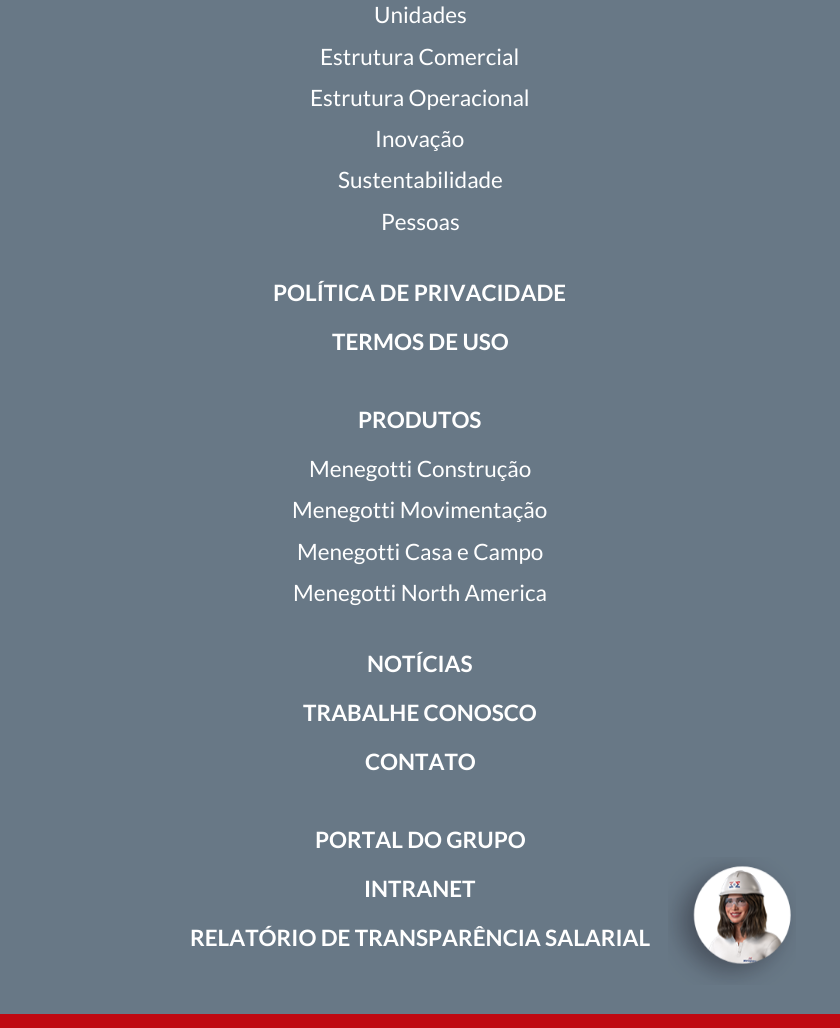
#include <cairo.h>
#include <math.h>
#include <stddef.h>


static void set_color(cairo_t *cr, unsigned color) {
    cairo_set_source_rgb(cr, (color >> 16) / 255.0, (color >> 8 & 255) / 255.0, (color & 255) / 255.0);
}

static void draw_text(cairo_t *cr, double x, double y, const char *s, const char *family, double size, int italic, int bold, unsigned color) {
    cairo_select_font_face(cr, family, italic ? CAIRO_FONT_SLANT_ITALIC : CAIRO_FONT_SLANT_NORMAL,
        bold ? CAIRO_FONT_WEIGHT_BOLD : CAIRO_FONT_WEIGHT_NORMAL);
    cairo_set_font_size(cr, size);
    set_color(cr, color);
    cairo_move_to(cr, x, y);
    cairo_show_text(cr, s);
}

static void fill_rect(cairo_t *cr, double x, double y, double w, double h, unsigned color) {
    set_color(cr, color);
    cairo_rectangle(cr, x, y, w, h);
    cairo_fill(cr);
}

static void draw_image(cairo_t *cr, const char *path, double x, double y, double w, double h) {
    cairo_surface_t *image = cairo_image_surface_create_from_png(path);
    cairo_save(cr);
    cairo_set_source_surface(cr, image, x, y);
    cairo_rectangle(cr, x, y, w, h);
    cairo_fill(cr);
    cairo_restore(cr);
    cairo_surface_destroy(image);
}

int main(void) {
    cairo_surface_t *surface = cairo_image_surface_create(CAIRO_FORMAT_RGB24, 840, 1028);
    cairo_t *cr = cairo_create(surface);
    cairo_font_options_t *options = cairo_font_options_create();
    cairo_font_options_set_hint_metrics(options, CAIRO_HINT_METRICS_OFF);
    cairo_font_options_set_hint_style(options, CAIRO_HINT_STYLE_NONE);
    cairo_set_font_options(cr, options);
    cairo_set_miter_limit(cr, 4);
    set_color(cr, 0x687886);
    cairo_paint(cr);
    draw_text(cr, 374, 23, "Unidades", "Lato", 22.5, 0, 0, 0xFFFFFF);
    draw_text(cr, 320, 65, "Estrutura Comercial", "Lato", 22.5, 0, 0, 0xFFFFFF);
    draw_text(cr, 310, 106, "Estrutura Operacional", "Lato", 22.5, 0, 0, 0xFFFFFF);
    draw_text(cr, 375, 147, "Inovação", "Lato", 22.5, 0, 0, 0xFFFFFF);
    draw_text(cr, 338, 188, "Sustentabilidade", "Lato", 22.5, 0, 0, 0xFFFFFF);
    draw_text(cr, 381, 230, "Pessoas", "Lato", 22.5, 0, 0, 0xFFFFFF);
    draw_text(cr, 273, 301, "POLÍTICA DE PRIVACIDADE", "Lato", 22.5, 0, 1, 0xFFFFFF);
    draw_text(cr, 332, 350, "TERMOS DE USO", "Lato", 22.5, 0, 1, 0xFFFFFF);
    draw_text(cr, 358, 428, "PRODUTOS", "Lato", 22.5, 0, 1, 0xFFFFFF);
    draw_text(cr, 309, 477, "Menegotti Construção", "Lato", 22.5, 0, 0, 0xFFFFFF);
    draw_text(cr, 292, 518, "Menegotti Movimentação", "Lato", 22.5, 0, 0, 0xFFFFFF);
    draw_text(cr, 297, 560, "Menegotti Casa e Campo", "Lato", 22.5, 0, 0, 0xFFFFFF);
    draw_text(cr, 293, 601, "Menegotti North America", "Lato", 22.5, 0, 0, 0xFFFFFF);
    draw_text(cr, 367, 672, "NOTÍCIAS", "Lato", 22.5, 0, 1, 0xFFFFFF);
    draw_text(cr, 303, 721, "TRABALHE CONOSCO", "Lato", 22.5, 0, 1, 0xFFFFFF);
    draw_text(cr, 365, 770, "CONTATO", "Lato", 22.5, 0, 1, 0xFFFFFF);
    draw_text(cr, 315, 848, "PORTAL DO GRUPO", "Lato", 22.5, 0, 1, 0xFFFFFF);
    draw_text(cr, 364, 897, "INTRANET", "Lato", 22.5, 0, 1, 0xFFFFFF);
    draw_text(cr, 190, 946, "RELATÓRIO DE TRANSPARÊNCIA SALARIAL", "Lato", 22.5, 0, 1, 0xFFFFFF);
    fill_rect(cr, 0, 1014, 840, 14, 0xBF0811);
    draw_image(cr, "assets/img1.png", 668, 857, 128, 128);
    cairo_surface_write_to_png(surface, "output.png");
    cairo_font_options_destroy(options);
    cairo_destroy(cr);
    cairo_surface_destroy(surface);
    return 0;
}
